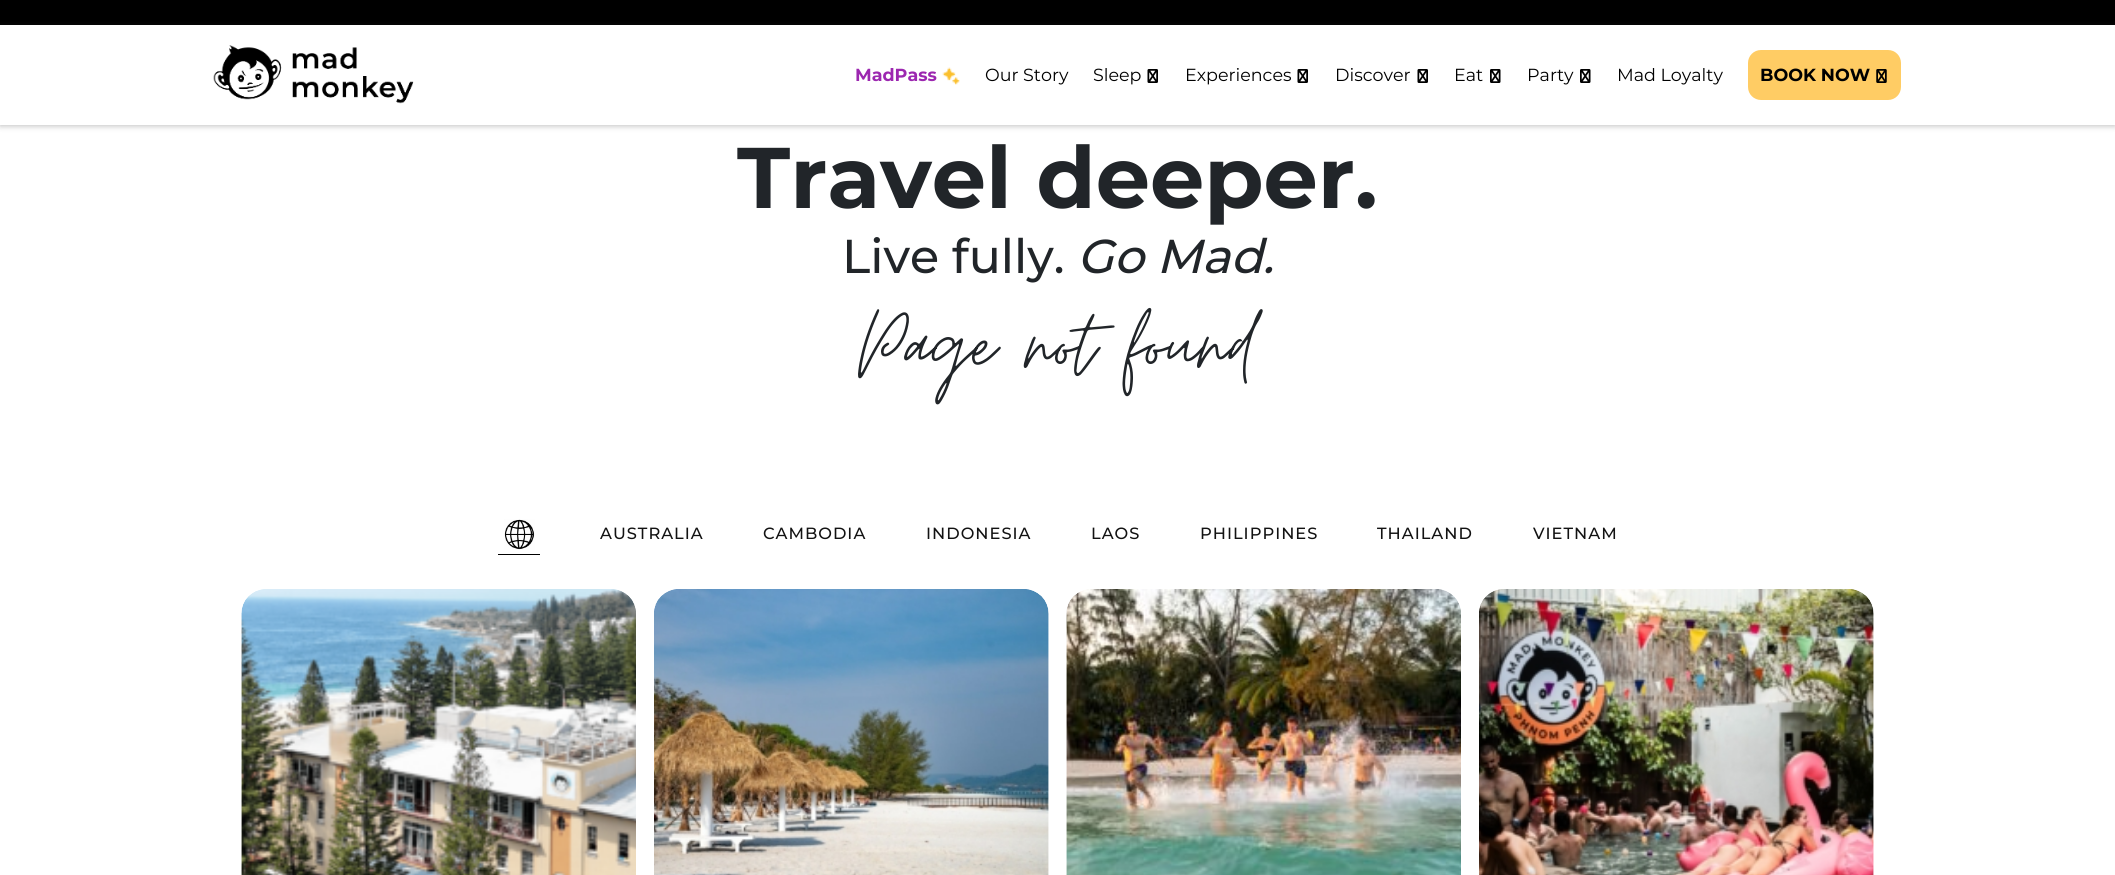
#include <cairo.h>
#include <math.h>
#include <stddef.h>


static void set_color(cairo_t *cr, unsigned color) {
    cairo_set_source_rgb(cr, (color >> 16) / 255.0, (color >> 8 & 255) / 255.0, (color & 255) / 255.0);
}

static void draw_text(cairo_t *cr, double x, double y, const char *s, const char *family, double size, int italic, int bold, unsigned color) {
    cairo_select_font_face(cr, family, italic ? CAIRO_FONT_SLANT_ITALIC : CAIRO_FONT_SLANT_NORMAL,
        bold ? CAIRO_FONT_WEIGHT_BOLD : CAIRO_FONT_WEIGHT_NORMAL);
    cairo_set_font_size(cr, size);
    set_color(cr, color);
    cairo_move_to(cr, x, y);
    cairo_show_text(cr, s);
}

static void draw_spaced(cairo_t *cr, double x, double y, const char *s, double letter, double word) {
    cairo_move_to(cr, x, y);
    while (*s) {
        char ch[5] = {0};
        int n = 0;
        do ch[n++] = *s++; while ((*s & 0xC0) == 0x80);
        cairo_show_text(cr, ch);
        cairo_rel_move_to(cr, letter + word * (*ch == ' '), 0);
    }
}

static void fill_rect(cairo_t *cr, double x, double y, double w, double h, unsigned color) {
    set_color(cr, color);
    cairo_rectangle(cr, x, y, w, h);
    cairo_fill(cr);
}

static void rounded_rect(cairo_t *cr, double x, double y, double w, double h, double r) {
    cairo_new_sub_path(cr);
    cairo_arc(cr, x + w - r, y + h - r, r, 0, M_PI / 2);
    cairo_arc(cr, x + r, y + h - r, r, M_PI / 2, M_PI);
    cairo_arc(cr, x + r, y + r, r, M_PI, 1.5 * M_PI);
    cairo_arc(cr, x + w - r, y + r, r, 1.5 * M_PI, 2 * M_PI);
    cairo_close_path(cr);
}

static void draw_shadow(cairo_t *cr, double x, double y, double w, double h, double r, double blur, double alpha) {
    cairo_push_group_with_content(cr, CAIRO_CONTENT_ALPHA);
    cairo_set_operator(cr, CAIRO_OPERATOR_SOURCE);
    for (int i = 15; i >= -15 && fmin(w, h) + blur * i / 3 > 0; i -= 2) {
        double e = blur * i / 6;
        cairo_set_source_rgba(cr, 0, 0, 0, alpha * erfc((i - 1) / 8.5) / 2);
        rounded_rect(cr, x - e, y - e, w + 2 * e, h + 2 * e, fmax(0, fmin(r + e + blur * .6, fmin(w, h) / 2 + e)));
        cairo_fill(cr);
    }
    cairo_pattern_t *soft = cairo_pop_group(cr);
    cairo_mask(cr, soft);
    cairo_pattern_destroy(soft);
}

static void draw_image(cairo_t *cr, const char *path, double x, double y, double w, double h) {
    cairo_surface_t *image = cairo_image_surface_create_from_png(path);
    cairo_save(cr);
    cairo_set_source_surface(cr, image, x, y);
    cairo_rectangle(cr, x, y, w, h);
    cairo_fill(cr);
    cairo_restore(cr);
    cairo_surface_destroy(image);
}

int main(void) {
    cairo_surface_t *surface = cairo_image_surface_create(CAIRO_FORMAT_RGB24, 2115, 875);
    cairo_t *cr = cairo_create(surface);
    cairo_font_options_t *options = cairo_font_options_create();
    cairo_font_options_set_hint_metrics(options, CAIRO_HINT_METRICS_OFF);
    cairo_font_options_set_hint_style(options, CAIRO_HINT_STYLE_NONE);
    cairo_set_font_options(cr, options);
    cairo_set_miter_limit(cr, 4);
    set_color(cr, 0xFFFFFF);
    cairo_paint(cr);
    fill_rect(cr, 0, 0, 2115, 25, 0x000000);
    cairo_save(cr);
    cairo_set_fill_rule(cr, CAIRO_FILL_RULE_EVEN_ODD);
    cairo_new_path(cr);
    cairo_move_to(cr, 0, 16);
    cairo_line_to(cr, 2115, 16);
    cairo_line_to(cr, 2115, 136);
    cairo_line_to(cr, 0, 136);
    cairo_close_path(cr);
    cairo_move_to(cr, 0, 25);
    cairo_line_to(cr, 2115, 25);
    cairo_line_to(cr, 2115, 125);
    cairo_line_to(cr, 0, 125);
    cairo_close_path(cr);
    cairo_clip(cr);
    set_color(cr, 0x2D2D2D);
    draw_shadow(cr, 0, 26, 2115, 100, 0, 3, 0.3);
    cairo_restore(cr);
    draw_image(cr, "assets/img1.png", 213, 45, 201, 59);
    draw_text(cr, 855, 81, "MadPass", "Montserrat", 17.5, 0, 1, 0x9C27B0);
    draw_image(cr, "assets/img2.png", 942, 67, 18, 18);
    draw_text(cr, 985, 81, "Our Story", "Montserrat", 17.5, 0, 0, 0x000000);
    draw_text(cr, 1093, 81, "Sleep", "Montserrat", 17.5, 0, 0, 0x000000);
    draw_image(cr, "assets/img3.png", 1147, 69, 11, 14);
    draw_text(cr, 1185, 81, "Experiences", "Montserrat", 17.5, 0, 0, 0x000000);
    draw_image(cr, "assets/img3.png", 1297, 69, 11, 14);
    draw_text(cr, 1335, 81, "Discover", "Montserrat", 17.5, 0, 0, 0x000000);
    draw_image(cr, "assets/img3.png", 1417, 69, 11, 14);
    draw_text(cr, 1454, 81, "Eat", "Montserrat", 17.5, 0, 0, 0x000000);
    draw_image(cr, "assets/img4.png", 1490, 69, 11, 14);
    draw_text(cr, 1527, 81, "Party", "Montserrat", 17.5, 0, 0, 0x000000);
    draw_image(cr, "assets/img4.png", 1580, 69, 11, 14);
    draw_text(cr, 1617, 81, "Mad Loyalty", "Montserrat", 17.5, 0, 0, 0x000000);
    set_color(cr, 0xFFCC64);
    rounded_rect(cr, 1748, 50, 153, 50, 13);
    cairo_fill(cr);
    draw_text(cr, 1760, 81, "BOOK NOW", "Montserrat", 17.5, 0, 1, 0x000000);
    draw_image(cr, "assets/img5.png", 1876, 69, 11, 14);
    draw_text(cr, 737, 208, "Travel deeper.", "Montserrat", 86, 0, 1, 0x212529);
    draw_text(cr, 842, 273, "Live fully.", "Montserrat Medium", 47.5, 0, 0, 0x212529);
    draw_text(cr, 1077, 273, "Go Mad.", "Montserrat Medium", 47.5, 1, 0, 0x212529);
    draw_text(cr, 858, 369, "Page not found", "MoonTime", 100, 0, 0, 0x212529);
    draw_image(cr, "assets/img6.png", 504, 519, 31, 31);
    fill_rect(cr, 498, 554, 42, 1, 0x000000);
    cairo_select_font_face(cr, "Montserrat Medium", CAIRO_FONT_SLANT_NORMAL, CAIRO_FONT_WEIGHT_NORMAL);
    cairo_set_font_size(cr, 16.25);
    set_color(cr, 0x121212);
    draw_spaced(cr, 600, 539, "AUSTRALIA", 1, 0);
    draw_spaced(cr, 763, 539, "CAMBODIA", 1, 0);
    draw_spaced(cr, 926, 539, "INDONESIA", 1, 0);
    draw_spaced(cr, 1091, 539, "LAOS", 1, 0);
    draw_spaced(cr, 1200, 539, "PHILIPPINES", 1, 0);
    draw_spaced(cr, 1377, 539, "THAILAND", 1, 0);
    draw_spaced(cr, 1533, 539, "VIETNAM", 1, 0);
    draw_image(cr, "assets/img7.png", 241, 589, 395, 286);
    draw_image(cr, "assets/img8.png", 654, 589, 395, 286);
    draw_image(cr, "assets/img9.png", 1066, 589, 395, 286);
    draw_image(cr, "assets/img10.png", 1479, 589, 395, 286);
    cairo_surface_write_to_png(surface, "output.png");
    cairo_font_options_destroy(options);
    cairo_destroy(cr);
    cairo_surface_destroy(surface);
    return 0;
}
